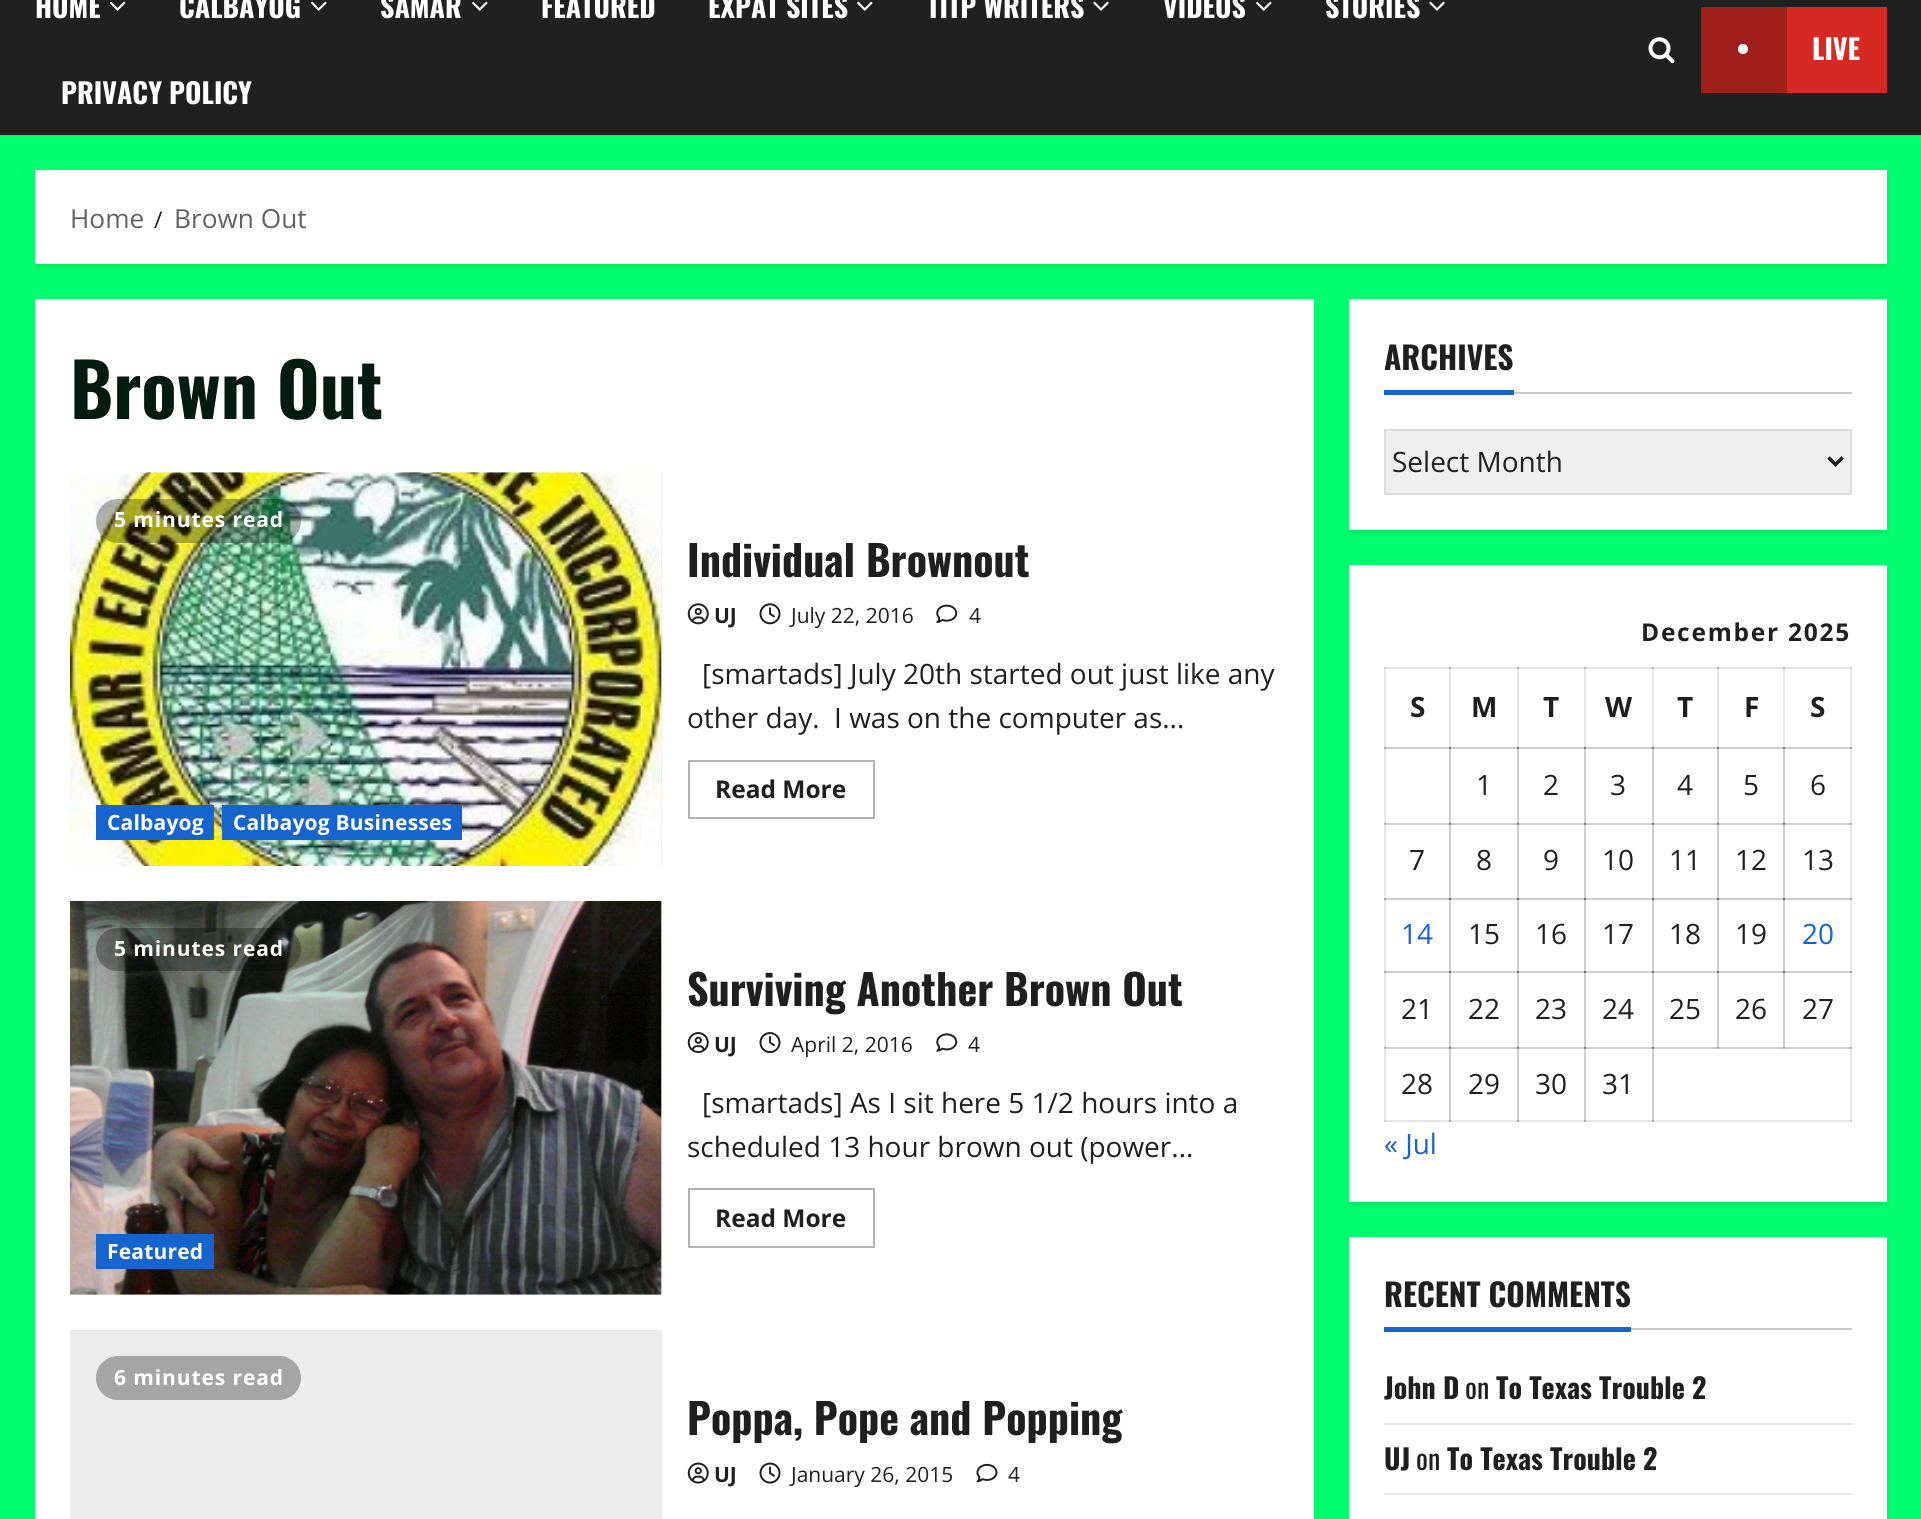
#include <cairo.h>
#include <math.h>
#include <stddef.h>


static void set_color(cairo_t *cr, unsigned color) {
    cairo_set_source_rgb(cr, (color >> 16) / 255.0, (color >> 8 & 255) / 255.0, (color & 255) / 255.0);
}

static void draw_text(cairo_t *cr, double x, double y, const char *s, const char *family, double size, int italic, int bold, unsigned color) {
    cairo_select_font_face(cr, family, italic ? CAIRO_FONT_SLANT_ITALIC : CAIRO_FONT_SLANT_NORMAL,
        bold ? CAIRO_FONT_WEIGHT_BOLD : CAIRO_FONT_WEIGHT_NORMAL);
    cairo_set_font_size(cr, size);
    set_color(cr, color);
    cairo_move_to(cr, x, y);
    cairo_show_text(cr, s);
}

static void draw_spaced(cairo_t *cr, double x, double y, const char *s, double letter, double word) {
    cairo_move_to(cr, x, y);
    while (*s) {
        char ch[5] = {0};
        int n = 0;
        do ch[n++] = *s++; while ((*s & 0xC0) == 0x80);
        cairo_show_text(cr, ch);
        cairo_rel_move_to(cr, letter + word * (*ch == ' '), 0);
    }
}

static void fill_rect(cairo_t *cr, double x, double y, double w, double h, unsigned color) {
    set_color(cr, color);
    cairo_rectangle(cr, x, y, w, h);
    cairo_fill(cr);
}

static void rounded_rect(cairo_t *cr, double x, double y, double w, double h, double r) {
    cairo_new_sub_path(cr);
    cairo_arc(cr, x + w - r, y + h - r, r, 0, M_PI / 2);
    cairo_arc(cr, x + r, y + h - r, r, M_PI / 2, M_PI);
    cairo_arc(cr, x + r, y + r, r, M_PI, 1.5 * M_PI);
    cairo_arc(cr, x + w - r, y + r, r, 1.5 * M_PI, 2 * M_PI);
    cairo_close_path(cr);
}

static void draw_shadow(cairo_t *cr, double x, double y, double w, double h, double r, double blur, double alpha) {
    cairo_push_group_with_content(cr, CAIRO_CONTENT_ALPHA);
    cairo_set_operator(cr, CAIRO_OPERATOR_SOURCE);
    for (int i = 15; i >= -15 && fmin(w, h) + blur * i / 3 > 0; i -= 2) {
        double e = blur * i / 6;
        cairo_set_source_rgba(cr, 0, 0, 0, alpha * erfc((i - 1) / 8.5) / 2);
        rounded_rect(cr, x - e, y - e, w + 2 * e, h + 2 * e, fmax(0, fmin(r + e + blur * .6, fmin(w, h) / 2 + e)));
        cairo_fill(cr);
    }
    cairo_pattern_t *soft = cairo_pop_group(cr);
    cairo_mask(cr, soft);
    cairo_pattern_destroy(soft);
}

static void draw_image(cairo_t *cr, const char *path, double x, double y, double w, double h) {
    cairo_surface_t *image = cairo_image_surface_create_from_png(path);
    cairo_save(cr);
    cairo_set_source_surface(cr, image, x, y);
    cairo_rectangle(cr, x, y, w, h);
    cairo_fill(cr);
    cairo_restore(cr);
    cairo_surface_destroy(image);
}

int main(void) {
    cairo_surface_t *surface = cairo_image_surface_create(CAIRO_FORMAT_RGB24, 1921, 1519);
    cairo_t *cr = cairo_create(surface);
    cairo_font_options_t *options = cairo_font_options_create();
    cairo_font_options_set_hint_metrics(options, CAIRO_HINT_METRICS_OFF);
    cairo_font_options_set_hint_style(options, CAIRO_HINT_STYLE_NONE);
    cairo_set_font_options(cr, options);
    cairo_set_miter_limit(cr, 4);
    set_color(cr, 0x00FF6F);
    cairo_paint(cr);
    fill_rect(cr, 0, 0, 1921, 135, 0x202020);
    draw_text(cr, 35, 18, "HOME", "Oswald", 28, 0, 1, 0xFFFFFF);
    draw_image(cr, "assets/img1.png", 109, 1, 17, 10);
    draw_text(cr, 179, 18, "CALBAYOG", "Oswald", 28, 0, 1, 0xFFFFFF);
    draw_image(cr, "assets/img2.png", 311, 1, 16, 10);
    draw_text(cr, 380, 18, "SAMAR", "Oswald", 28, 0, 1, 0xFFFFFF);
    draw_image(cr, "assets/img2.png", 472, 1, 16, 10);
    draw_text(cr, 541, 18, "FEATURED", "Oswald", 28, 0, 1, 0xFFFFFF);
    draw_text(cr, 708, 18, "EXPAT SITES", "Oswald", 28, 0, 1, 0xFFFFFF);
    draw_image(cr, "assets/img2.png", 857, 1, 16, 10);
    draw_text(cr, 927, 18, "TITP WRITERS", "Oswald", 28, 0, 1, 0xFFFFFF);
    draw_image(cr, "assets/img3.png", 1093, 1, 16, 10);
    draw_text(cr, 1163, 18, "VIDEOS", "Oswald", 28, 0, 1, 0xFFFFFF);
    draw_image(cr, "assets/img2.png", 1256, 1, 16, 10);
    draw_text(cr, 1325, 18, "STORIES", "Oswald", 28, 0, 1, 0xFFFFFF);
    draw_image(cr, "assets/img3.png", 1429, 1, 16, 10);
    draw_text(cr, 61, 104, "PRIVACY POLICY", "Oswald", 28, 0, 1, 0xFFFFFF);
    draw_image(cr, "assets/img4.png", 1648, 37, 27, 27);
    fill_rect(cr, 1787, 7, 100, 86, 0xD72924);
    fill_rect(cr, 1701, 7, 86, 86, 0xA11F1B);
    set_color(cr, 0xFFFFFF);
    cairo_arc(cr, 1743, 49, 5, 0, 2 * M_PI);
    cairo_fill(cr);
    draw_text(cr, 1812, 60, "LIVE", "Oswald", 28, 0, 1, 0xFFFFFF);
    set_color(cr, 0x000000);
    draw_shadow(cr, 35, 173, 1852, 95, 0, 2, 0.08);
    fill_rect(cr, 35, 170, 1852, 94, 0xFFFFFF);
    draw_text(cr, 70, 228, "Home", "Open Sans", 26.25, 0, 0, 0x626262);
    draw_text(cr, 154, 228, "/", "Open Sans", 23, 0, 0, 0x1F1F1F);
    draw_text(cr, 174, 228, "Brown Out", "Open Sans", 26.25, 0, 0, 0x626262);
    set_color(cr, 0x000000);
    draw_shadow(cr, 35, 303, 1279, 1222, 0, 2, 0.08);
    fill_rect(cr, 35, 299, 1279, 1220, 0xFFFFFF);
    draw_text(cr, 70, 419, "Brown Out", "Oswald", 73.5, 0, 1, 0x031B11);
    fill_rect(cr, 661, 473, 1, 393, 0xECECEC);
    draw_image(cr, "assets/img5.png", 70, 472, 592, 394);
    cairo_set_source_rgba(cr, 0, 0, 0, 0.3);
    rounded_rect(cr, 96, 499, 205, 44, 22);
    cairo_fill(cr);
    cairo_select_font_face(cr, "Open Sans", CAIRO_FONT_SLANT_NORMAL, CAIRO_FONT_WEIGHT_BOLD);
    cairo_set_font_size(cr, 21);
    set_color(cr, 0xFFFFFF);
    draw_spaced(cr, 114, 527, "5 minutes read", 0.9, 0);
    fill_rect(cr, 96, 805, 118, 35, 0x1665CF);
    set_color(cr, 0xFFFFFF);
    draw_spaced(cr, 107, 830, "Calbayog", 0.2, 0);
    fill_rect(cr, 222, 805, 240, 35, 0x1665CF);
    set_color(cr, 0xFFFFFF);
    draw_spaced(cr, 233, 830, "Calbayog Businesses", 0.2, 0);
    draw_text(cr, 687, 577, "Individual Brownout", "Oswald", 42, 0, 1, 0x1F1F1F);
    draw_image(cr, "assets/img6.png", 687, 603, 22, 22);
    draw_text(cr, 714, 623, "UJ", "Open Sans", 21, 0, 1, 0x1F1F1F);
    draw_image(cr, "assets/img7.png", 759, 603, 22, 22);
    draw_text(cr, 791, 623, "July 22, 2016", "Open Sans", 21, 0, 0, 0x1F1F1F);
    draw_image(cr, "assets/img8.png", 936, 604, 22, 19);
    draw_text(cr, 969, 623, "4", "Open Sans", 21, 0, 0, 0x1F1F1F);
    draw_text(cr, 702, 684, "[smartads] July 20th started out just like any", "Open Sans", 28, 0, 0, 0x1F1F1F);
    draw_text(cr, 687, 728, "other day.  I was on the computer as...", "Open Sans", 28, 0, 0, 0x1F1F1F);
    cairo_rectangle(cr, 689, 761, 185, 57);
    set_color(cr, 0xB3B3B3);
    cairo_stroke(cr);
    draw_text(cr, 715, 798, "Read More", "Open Sans", 24.5, 0, 1, 0x1F1F1F);
    fill_rect(cr, 70, 901, 592, 394, 0xECECEC);
    draw_image(cr, "assets/img9.png", 70, 901, 592, 394);
    cairo_set_source_rgba(cr, 0, 0, 0, 0.3);
    rounded_rect(cr, 96, 928, 205, 43, 21.5);
    cairo_fill(cr);
    cairo_set_font_size(cr, 21);
    set_color(cr, 0xFFFFFF);
    draw_spaced(cr, 114, 956, "5 minutes read", 0.9, 0);
    fill_rect(cr, 96, 1234, 118, 35, 0x1665CF);
    set_color(cr, 0xFFFFFF);
    draw_spaced(cr, 107, 1259, "Featured", 0.2, 0);
    draw_text(cr, 687, 1006, "Surviving Another Brown Out", "Oswald", 42, 0, 1, 0x1F1F1F);
    draw_image(cr, "assets/img10.png", 687, 1032, 22, 22);
    draw_text(cr, 714, 1052, "UJ", "Open Sans", 21, 0, 1, 0x1F1F1F);
    draw_image(cr, "assets/img11.png", 759, 1032, 22, 21);
    draw_text(cr, 791, 1052, "April 2, 2016", "Open Sans", 21, 0, 0, 0x1F1F1F);
    draw_image(cr, "assets/img12.png", 936, 1033, 22, 19);
    draw_text(cr, 968, 1052, "4", "Open Sans", 21, 0, 0, 0x1F1F1F);
    draw_text(cr, 702, 1113, "[smartads] As I sit here 5 1/2 hours into a", "Open Sans", 28, 0, 0, 0x1F1F1F);
    draw_text(cr, 687, 1157, "scheduled 13 hour brown out (power...", "Open Sans", 28, 0, 0, 0x1F1F1F);
    cairo_rectangle(cr, 689, 1189, 185, 58);
    set_color(cr, 0xB3B3B3);
    cairo_stroke(cr);
    draw_text(cr, 715, 1227, "Read More", "Open Sans", 24.5, 0, 1, 0x1F1F1F);
    fill_rect(cr, 70, 1330, 592, 189, 0xECECEC);
    set_color(cr, 0xA5A5A5);
    rounded_rect(cr, 96, 1356, 205, 44, 22);
    cairo_fill(cr);
    cairo_set_font_size(cr, 21);
    set_color(cr, 0xFFFFFF);
    draw_spaced(cr, 114, 1385, "6 minutes read", 0.9, 0);
    draw_text(cr, 687, 1435, "Poppa, Pope and Popping", "Oswald", 42, 0, 1, 0x1F1F1F);
    draw_image(cr, "assets/img13.png", 687, 1462, 22, 22);
    draw_text(cr, 714, 1482, "UJ", "Open Sans", 21, 0, 1, 0x1F1F1F);
    draw_image(cr, "assets/img14.png", 759, 1462, 22, 22);
    draw_text(cr, 791, 1482, "January 26, 2015", "Open Sans", 21, 0, 0, 0x1F1F1F);
    draw_image(cr, "assets/img15.png", 976, 1463, 22, 20);
    draw_text(cr, 1008, 1482, "4", "Open Sans", 21, 0, 0, 0x1F1F1F);
    set_color(cr, 0x000000);
    draw_shadow(cr, 1349, 303, 538, 231, 0, 2, 0.08);
    fill_rect(cr, 1349, 299, 538, 231, 0xFFFFFF);
    fill_rect(cr, 1514, 392, 338, 2, 0xCCCCCC);
    draw_text(cr, 1384, 370, "ARCHIVES", "Oswald", 31.5, 0, 1, 0x1F1F1F);
    fill_rect(cr, 1384, 390, 130, 5, 0x1665CF);
    set_color(cr, 0xEFEFEF);
    cairo_rectangle(cr, 1385, 430, 466, 64);
    cairo_fill_preserve(cr);
    set_color(cr, 0xDCDCDC);
    cairo_stroke(cr);
    cairo_new_path(cr);
    cairo_move_to(cr, 1828.5, 457.5);
    cairo_line_to(cr, 1835.5, 464.5);
    cairo_line_to(cr, 1842.5, 457.5);
    set_color(cr, 0x1F1F1F);
    cairo_set_line_width(cr, 3.5);
    cairo_stroke(cr);
    draw_text(cr, 1392, 472, "Select Month", "Open Sans", 28, 0, 0, 0x1F1F1F);
    set_color(cr, 0x000000);
    draw_shadow(cr, 1349, 569, 538, 637, 0, 2, 0.08);
    fill_rect(cr, 1349, 565, 538, 637, 0xFFFFFF);
    fill_rect(cr, 1384, 667, 2, 455, 0xE6E6E6);
    fill_rect(cr, 1384, 667, 67, 2, 0xE6E6E6);
    fill_rect(cr, 1384, 667, 2, 2, 0xCFCFCF);
    fill_rect(cr, 1449, 667, 2, 82, 0xE6E6E6);
    fill_rect(cr, 1449, 667, 70, 2, 0xE6E6E6);
    fill_rect(cr, 1449, 667, 2, 2, 0xBABABA);
    fill_rect(cr, 1517, 667, 2, 82, 0xE6E6E6);
    fill_rect(cr, 1517, 667, 69, 2, 0xE6E6E6);
    fill_rect(cr, 1517, 667, 2, 2, 0xBABABA);
    fill_rect(cr, 1584, 667, 2, 82, 0xE6E6E6);
    fill_rect(cr, 1584, 667, 70, 2, 0xE6E6E6);
    fill_rect(cr, 1584, 667, 2, 2, 0xBABABA);
    fill_rect(cr, 1652, 667, 2, 82, 0xE6E6E6);
    fill_rect(cr, 1652, 667, 67, 2, 0xE6E6E6);
    fill_rect(cr, 1652, 667, 2, 2, 0xBABABA);
    fill_rect(cr, 1717, 667, 2, 82, 0xE6E6E6);
    fill_rect(cr, 1717, 667, 68, 2, 0xE6E6E6);
    fill_rect(cr, 1717, 667, 2, 2, 0xBABABA);
    fill_rect(cr, 1783, 667, 2, 82, 0xE6E6E6);
    fill_rect(cr, 1850, 667, 2, 381, 0xE6E6E6);
    fill_rect(cr, 1384, 747, 67, 2, 0xCFCFCF);
    fill_rect(cr, 1384, 747, 2, 2, 0xA7A7A7);
    fill_rect(cr, 1449, 747, 2, 77, 0xCFCFCF);
    fill_rect(cr, 1449, 747, 70, 2, 0xCFCFCF);
    fill_rect(cr, 1449, 747, 2, 2, 0x7A7A7A);
    fill_rect(cr, 1517, 747, 2, 77, 0xCFCFCF);
    fill_rect(cr, 1517, 747, 69, 2, 0xCFCFCF);
    fill_rect(cr, 1517, 747, 2, 2, 0x7A7A7A);
    fill_rect(cr, 1584, 747, 2, 77, 0xCFCFCF);
    fill_rect(cr, 1584, 747, 70, 2, 0xCFCFCF);
    fill_rect(cr, 1584, 747, 2, 2, 0x7A7A7A);
    fill_rect(cr, 1652, 747, 2, 77, 0xCFCFCF);
    fill_rect(cr, 1652, 747, 67, 2, 0xCFCFCF);
    fill_rect(cr, 1652, 747, 2, 2, 0x7A7A7A);
    fill_rect(cr, 1717, 747, 2, 77, 0xCFCFCF);
    fill_rect(cr, 1717, 747, 68, 2, 0xCFCFCF);
    fill_rect(cr, 1717, 747, 2, 2, 0x7A7A7A);
    fill_rect(cr, 1783, 747, 2, 77, 0xCFCFCF);
    fill_rect(cr, 1384, 823, 67, 2, 0xCFCFCF);
    fill_rect(cr, 1384, 824, 2, 1, 0xBABABA);
    fill_rect(cr, 1384, 823, 2, 1, 0xA7A7A7);
    fill_rect(cr, 1449, 823, 2, 77, 0xCFCFCF);
    fill_rect(cr, 1449, 823, 70, 2, 0xCFCFCF);
    fill_rect(cr, 1449, 824, 2, 1, 0x878787);
    fill_rect(cr, 1449, 823, 2, 1, 0x6E6E6E);
    fill_rect(cr, 1517, 823, 2, 77, 0xCFCFCF);
    fill_rect(cr, 1517, 823, 69, 2, 0xCFCFCF);
    fill_rect(cr, 1517, 824, 2, 1, 0x878787);
    fill_rect(cr, 1517, 823, 2, 1, 0x6E6E6E);
    fill_rect(cr, 1584, 823, 2, 77, 0xCFCFCF);
    fill_rect(cr, 1584, 823, 70, 2, 0xCFCFCF);
    fill_rect(cr, 1584, 824, 2, 1, 0x878787);
    fill_rect(cr, 1584, 823, 2, 1, 0x6E6E6E);
    fill_rect(cr, 1652, 823, 2, 77, 0xCFCFCF);
    fill_rect(cr, 1652, 823, 67, 2, 0xCFCFCF);
    fill_rect(cr, 1652, 824, 2, 1, 0x878787);
    fill_rect(cr, 1652, 823, 2, 1, 0x6E6E6E);
    fill_rect(cr, 1717, 823, 2, 77, 0xCFCFCF);
    fill_rect(cr, 1717, 823, 68, 2, 0xCFCFCF);
    fill_rect(cr, 1717, 824, 2, 1, 0x878787);
    fill_rect(cr, 1717, 823, 2, 1, 0x6E6E6E);
    fill_rect(cr, 1783, 823, 2, 77, 0xCFCFCF);
    fill_rect(cr, 1384, 898, 67, 2, 0xCFCFCF);
    fill_rect(cr, 1384, 898, 2, 2, 0xA7A7A7);
    fill_rect(cr, 1449, 898, 2, 75, 0xCFCFCF);
    fill_rect(cr, 1449, 898, 70, 2, 0xCFCFCF);
    fill_rect(cr, 1449, 898, 2, 2, 0x6E6E6E);
    fill_rect(cr, 1517, 898, 2, 75, 0xCFCFCF);
    fill_rect(cr, 1517, 898, 69, 2, 0xCFCFCF);
    fill_rect(cr, 1517, 898, 2, 2, 0x6E6E6E);
    fill_rect(cr, 1584, 898, 2, 75, 0xCFCFCF);
    fill_rect(cr, 1584, 898, 70, 2, 0xCFCFCF);
    fill_rect(cr, 1584, 898, 2, 2, 0x6E6E6E);
    fill_rect(cr, 1652, 898, 2, 75, 0xCFCFCF);
    fill_rect(cr, 1652, 898, 67, 2, 0xCFCFCF);
    fill_rect(cr, 1652, 898, 2, 2, 0x6E6E6E);
    fill_rect(cr, 1717, 898, 2, 75, 0xCFCFCF);
    fill_rect(cr, 1717, 898, 68, 2, 0xCFCFCF);
    fill_rect(cr, 1717, 898, 2, 2, 0x6E6E6E);
    fill_rect(cr, 1783, 898, 2, 75, 0xCFCFCF);
    fill_rect(cr, 1384, 971, 67, 2, 0xCFCFCF);
    fill_rect(cr, 1384, 971, 2, 2, 0xA7A7A7);
    fill_rect(cr, 1449, 971, 2, 77, 0xCFCFCF);
    fill_rect(cr, 1449, 971, 70, 2, 0xCFCFCF);
    fill_rect(cr, 1449, 971, 2, 2, 0x6E6E6E);
    fill_rect(cr, 1517, 971, 2, 77, 0xCFCFCF);
    fill_rect(cr, 1517, 971, 69, 2, 0xCFCFCF);
    fill_rect(cr, 1517, 971, 2, 2, 0x6E6E6E);
    fill_rect(cr, 1584, 971, 2, 77, 0xCFCFCF);
    fill_rect(cr, 1584, 971, 70, 2, 0xCFCFCF);
    fill_rect(cr, 1584, 971, 2, 2, 0x6E6E6E);
    fill_rect(cr, 1652, 971, 2, 77, 0xCFCFCF);
    fill_rect(cr, 1652, 971, 67, 2, 0xCFCFCF);
    fill_rect(cr, 1652, 971, 2, 2, 0x6E6E6E);
    fill_rect(cr, 1717, 971, 2, 77, 0xCFCFCF);
    fill_rect(cr, 1717, 971, 68, 2, 0xCFCFCF);
    fill_rect(cr, 1717, 971, 2, 2, 0x6E6E6E);
    fill_rect(cr, 1783, 971, 2, 77, 0xCFCFCF);
    fill_rect(cr, 1384, 1120, 67, 2, 0xE6E6E6);
    fill_rect(cr, 1384, 1120, 2, 2, 0xCFCFCF);
    fill_rect(cr, 1384, 1047, 67, 2, 0xCFCFCF);
    fill_rect(cr, 1384, 1048, 2, 1, 0xBABABA);
    fill_rect(cr, 1384, 1047, 2, 1, 0xA7A7A7);
    fill_rect(cr, 1449, 1047, 2, 75, 0xCFCFCF);
    fill_rect(cr, 1449, 1120, 70, 2, 0xE6E6E6);
    fill_rect(cr, 1449, 1120, 2, 2, 0xA7A7A7);
    fill_rect(cr, 1449, 1047, 70, 2, 0xCFCFCF);
    fill_rect(cr, 1449, 1048, 2, 1, 0x878787);
    fill_rect(cr, 1449, 1047, 2, 1, 0x6E6E6E);
    fill_rect(cr, 1517, 1047, 2, 75, 0xCFCFCF);
    fill_rect(cr, 1517, 1120, 69, 2, 0xE6E6E6);
    fill_rect(cr, 1517, 1120, 2, 2, 0xA7A7A7);
    fill_rect(cr, 1517, 1047, 69, 2, 0xCFCFCF);
    fill_rect(cr, 1517, 1048, 2, 1, 0x878787);
    fill_rect(cr, 1517, 1047, 2, 1, 0x6E6E6E);
    fill_rect(cr, 1584, 1047, 2, 75, 0xCFCFCF);
    fill_rect(cr, 1584, 1120, 70, 2, 0xE6E6E6);
    fill_rect(cr, 1584, 1120, 2, 2, 0xA7A7A7);
    fill_rect(cr, 1584, 1047, 70, 2, 0xCFCFCF);
    fill_rect(cr, 1584, 1048, 2, 1, 0x878787);
    fill_rect(cr, 1584, 1047, 2, 1, 0x6E6E6E);
    fill_rect(cr, 1652, 1047, 2, 75, 0xCFCFCF);
    fill_rect(cr, 1652, 1120, 200, 2, 0xE6E6E6);
    fill_rect(cr, 1652, 1120, 2, 2, 0xA7A7A7);
    fill_rect(cr, 1850, 1047, 2, 75, 0xE6E6E6);
    fill_rect(cr, 1850, 1120, 2, 2, 0xCFCFCF);
    cairo_select_font_face(cr, "Open Sans", CAIRO_FONT_SLANT_NORMAL, CAIRO_FONT_WEIGHT_BOLD);
    cairo_set_font_size(cr, 24.5);
    set_color(cr, 0x1F1F1F);
    draw_spaced(cr, 1641, 641, "December 2025", 1.75, 0);
    draw_text(cr, 1410, 717, "S", "Open Sans", 28, 0, 1, 0x1F1F1F);
    draw_text(cr, 1471, 717, "M", "Open Sans", 28, 0, 1, 0x1F1F1F);
    draw_text(cr, 1543, 717, "T", "Open Sans", 28, 0, 1, 0x1F1F1F);
    draw_text(cr, 1605, 717, "W", "Open Sans", 28, 0, 1, 0x1F1F1F);
    draw_text(cr, 1677, 717, "T", "Open Sans", 28, 0, 1, 0x1F1F1F);
    draw_text(cr, 1744, 717, "F", "Open Sans", 28, 0, 1, 0x1F1F1F);
    fill_rect(cr, 1783, 667, 69, 2, 0xE6E6E6);
    fill_rect(cr, 1783, 667, 2, 2, 0xBABABA);
    fill_rect(cr, 1850, 667, 2, 2, 0xCFCFCF);
    draw_text(cr, 1810, 717, "S", "Open Sans", 28, 0, 1, 0x1F1F1F);
    draw_text(cr, 1476, 795, "1", "Open Sans", 28, 0, 0, 0x1F1F1F);
    draw_text(cr, 1543, 795, "2", "Open Sans", 28, 0, 0, 0x1F1F1F);
    draw_text(cr, 1610, 795, "3", "Open Sans", 28, 0, 0, 0x1F1F1F);
    draw_text(cr, 1677, 795, "4", "Open Sans", 28, 0, 0, 0x1F1F1F);
    draw_text(cr, 1743, 795, "5", "Open Sans", 28, 0, 0, 0x1F1F1F);
    fill_rect(cr, 1783, 747, 69, 2, 0xCFCFCF);
    fill_rect(cr, 1783, 747, 2, 2, 0x7A7A7A);
    fill_rect(cr, 1850, 747, 2, 2, 0xA7A7A7);
    draw_text(cr, 1810, 795, "6", "Open Sans", 28, 0, 0, 0x1F1F1F);
    draw_text(cr, 1409, 870, "7", "Open Sans", 28, 0, 0, 0x1F1F1F);
    draw_text(cr, 1476, 870, "8", "Open Sans", 28, 0, 0, 0x1F1F1F);
    draw_text(cr, 1543, 870, "9", "Open Sans", 28, 0, 0, 0x1F1F1F);
    draw_text(cr, 1602, 870, "10", "Open Sans", 28, 0, 0, 0x1F1F1F);
    draw_text(cr, 1669, 870, "11", "Open Sans", 28, 0, 0, 0x1F1F1F);
    draw_text(cr, 1735, 870, "12", "Open Sans", 28, 0, 0, 0x1F1F1F);
    fill_rect(cr, 1783, 823, 69, 2, 0xCFCFCF);
    fill_rect(cr, 1783, 824, 2, 1, 0x878787);
    fill_rect(cr, 1783, 823, 2, 1, 0x6E6E6E);
    fill_rect(cr, 1850, 824, 2, 1, 0xBABABA);
    fill_rect(cr, 1850, 823, 2, 1, 0xA7A7A7);
    draw_text(cr, 1802, 870, "13", "Open Sans", 28, 0, 0, 0x1F1F1F);
    draw_text(cr, 1401, 944, "14", "Open Sans", 28, 0, 0, 0x1665CF);
    draw_text(cr, 1468, 944, "15", "Open Sans", 28, 0, 0, 0x1F1F1F);
    draw_text(cr, 1535, 944, "16", "Open Sans", 28, 0, 0, 0x1F1F1F);
    draw_text(cr, 1602, 944, "17", "Open Sans", 28, 0, 0, 0x1F1F1F);
    draw_text(cr, 1669, 944, "18", "Open Sans", 28, 0, 0, 0x1F1F1F);
    draw_text(cr, 1735, 944, "19", "Open Sans", 28, 0, 0, 0x1F1F1F);
    fill_rect(cr, 1783, 898, 69, 2, 0xCFCFCF);
    fill_rect(cr, 1783, 898, 2, 2, 0x6E6E6E);
    fill_rect(cr, 1850, 898, 2, 2, 0xA7A7A7);
    draw_text(cr, 1802, 944, "20", "Open Sans", 28, 0, 0, 0x1665CF);
    draw_text(cr, 1401, 1019, "21", "Open Sans", 28, 0, 0, 0x1F1F1F);
    draw_text(cr, 1468, 1019, "22", "Open Sans", 28, 0, 0, 0x1F1F1F);
    draw_text(cr, 1535, 1019, "23", "Open Sans", 28, 0, 0, 0x1F1F1F);
    draw_text(cr, 1602, 1019, "24", "Open Sans", 28, 0, 0, 0x1F1F1F);
    draw_text(cr, 1669, 1019, "25", "Open Sans", 28, 0, 0, 0x1F1F1F);
    draw_text(cr, 1735, 1019, "26", "Open Sans", 28, 0, 0, 0x1F1F1F);
    fill_rect(cr, 1783, 971, 69, 2, 0xCFCFCF);
    fill_rect(cr, 1783, 971, 2, 2, 0x6E6E6E);
    fill_rect(cr, 1850, 971, 2, 2, 0xA7A7A7);
    draw_text(cr, 1802, 1019, "27", "Open Sans", 28, 0, 0, 0x1F1F1F);
    fill_rect(cr, 1652, 1047, 200, 2, 0xCFCFCF);
    fill_rect(cr, 1717, 1048, 2, 1, 0xBABABA);
    fill_rect(cr, 1717, 1047, 2, 1, 0x969696);
    fill_rect(cr, 1783, 1048, 2, 1, 0xBABABA);
    fill_rect(cr, 1783, 1047, 2, 1, 0x969696);
    fill_rect(cr, 1652, 1048, 2, 1, 0x878787);
    fill_rect(cr, 1652, 1047, 2, 1, 0x6E6E6E);
    fill_rect(cr, 1850, 1048, 2, 1, 0xBABABA);
    fill_rect(cr, 1850, 1047, 2, 1, 0xA7A7A7);
    draw_text(cr, 1401, 1094, "28", "Open Sans", 28, 0, 0, 0x1F1F1F);
    draw_text(cr, 1468, 1094, "29", "Open Sans", 28, 0, 0, 0x1F1F1F);
    draw_text(cr, 1535, 1094, "30", "Open Sans", 28, 0, 0, 0x1F1F1F);
    draw_text(cr, 1602, 1094, "31", "Open Sans", 28, 0, 0, 0x1F1F1F);
    draw_text(cr, 1384, 1154, "« Jul", "Open Sans", 28, 0, 0, 0x1665CF);
    set_color(cr, 0x000000);
    draw_shadow(cr, 1349, 1241, 538, 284, 0, 2, 0.08);
    fill_rect(cr, 1349, 1237, 538, 282, 0xFFFFFF);
    fill_rect(cr, 1631, 1328, 221, 2, 0xCCCCCC);
    draw_text(cr, 1384, 1307, "RECENT COMMENTS", "Oswald", 31.5, 0, 1, 0x1F1F1F);
    fill_rect(cr, 1384, 1327, 247, 5, 0x1665CF);
    fill_rect(cr, 1384, 1423, 468, 2, 0xE6E6E6);
    draw_text(cr, 1384, 1399, "John D", "Oswald", 28, 0, 1, 0x1F1F1F);
    draw_text(cr, 1465, 1399, "on", "Oswald", 28, 0, 0, 0x1F1F1F);
    draw_text(cr, 1496, 1399, "To Texas Trouble 2", "Oswald", 28, 0, 1, 0x1F1F1F);
    fill_rect(cr, 1384, 1493, 468, 2, 0xE6E6E6);
    draw_text(cr, 1384, 1470, "UJ", "Oswald", 28, 0, 1, 0x1F1F1F);
    draw_text(cr, 1416, 1470, "on", "Oswald", 28, 0, 0, 0x1F1F1F);
    draw_text(cr, 1447, 1470, "To Texas Trouble 2", "Oswald", 28, 0, 1, 0x1F1F1F);
    cairo_surface_write_to_png(surface, "output.png");
    cairo_font_options_destroy(options);
    cairo_destroy(cr);
    cairo_surface_destroy(surface);
    return 0;
}
